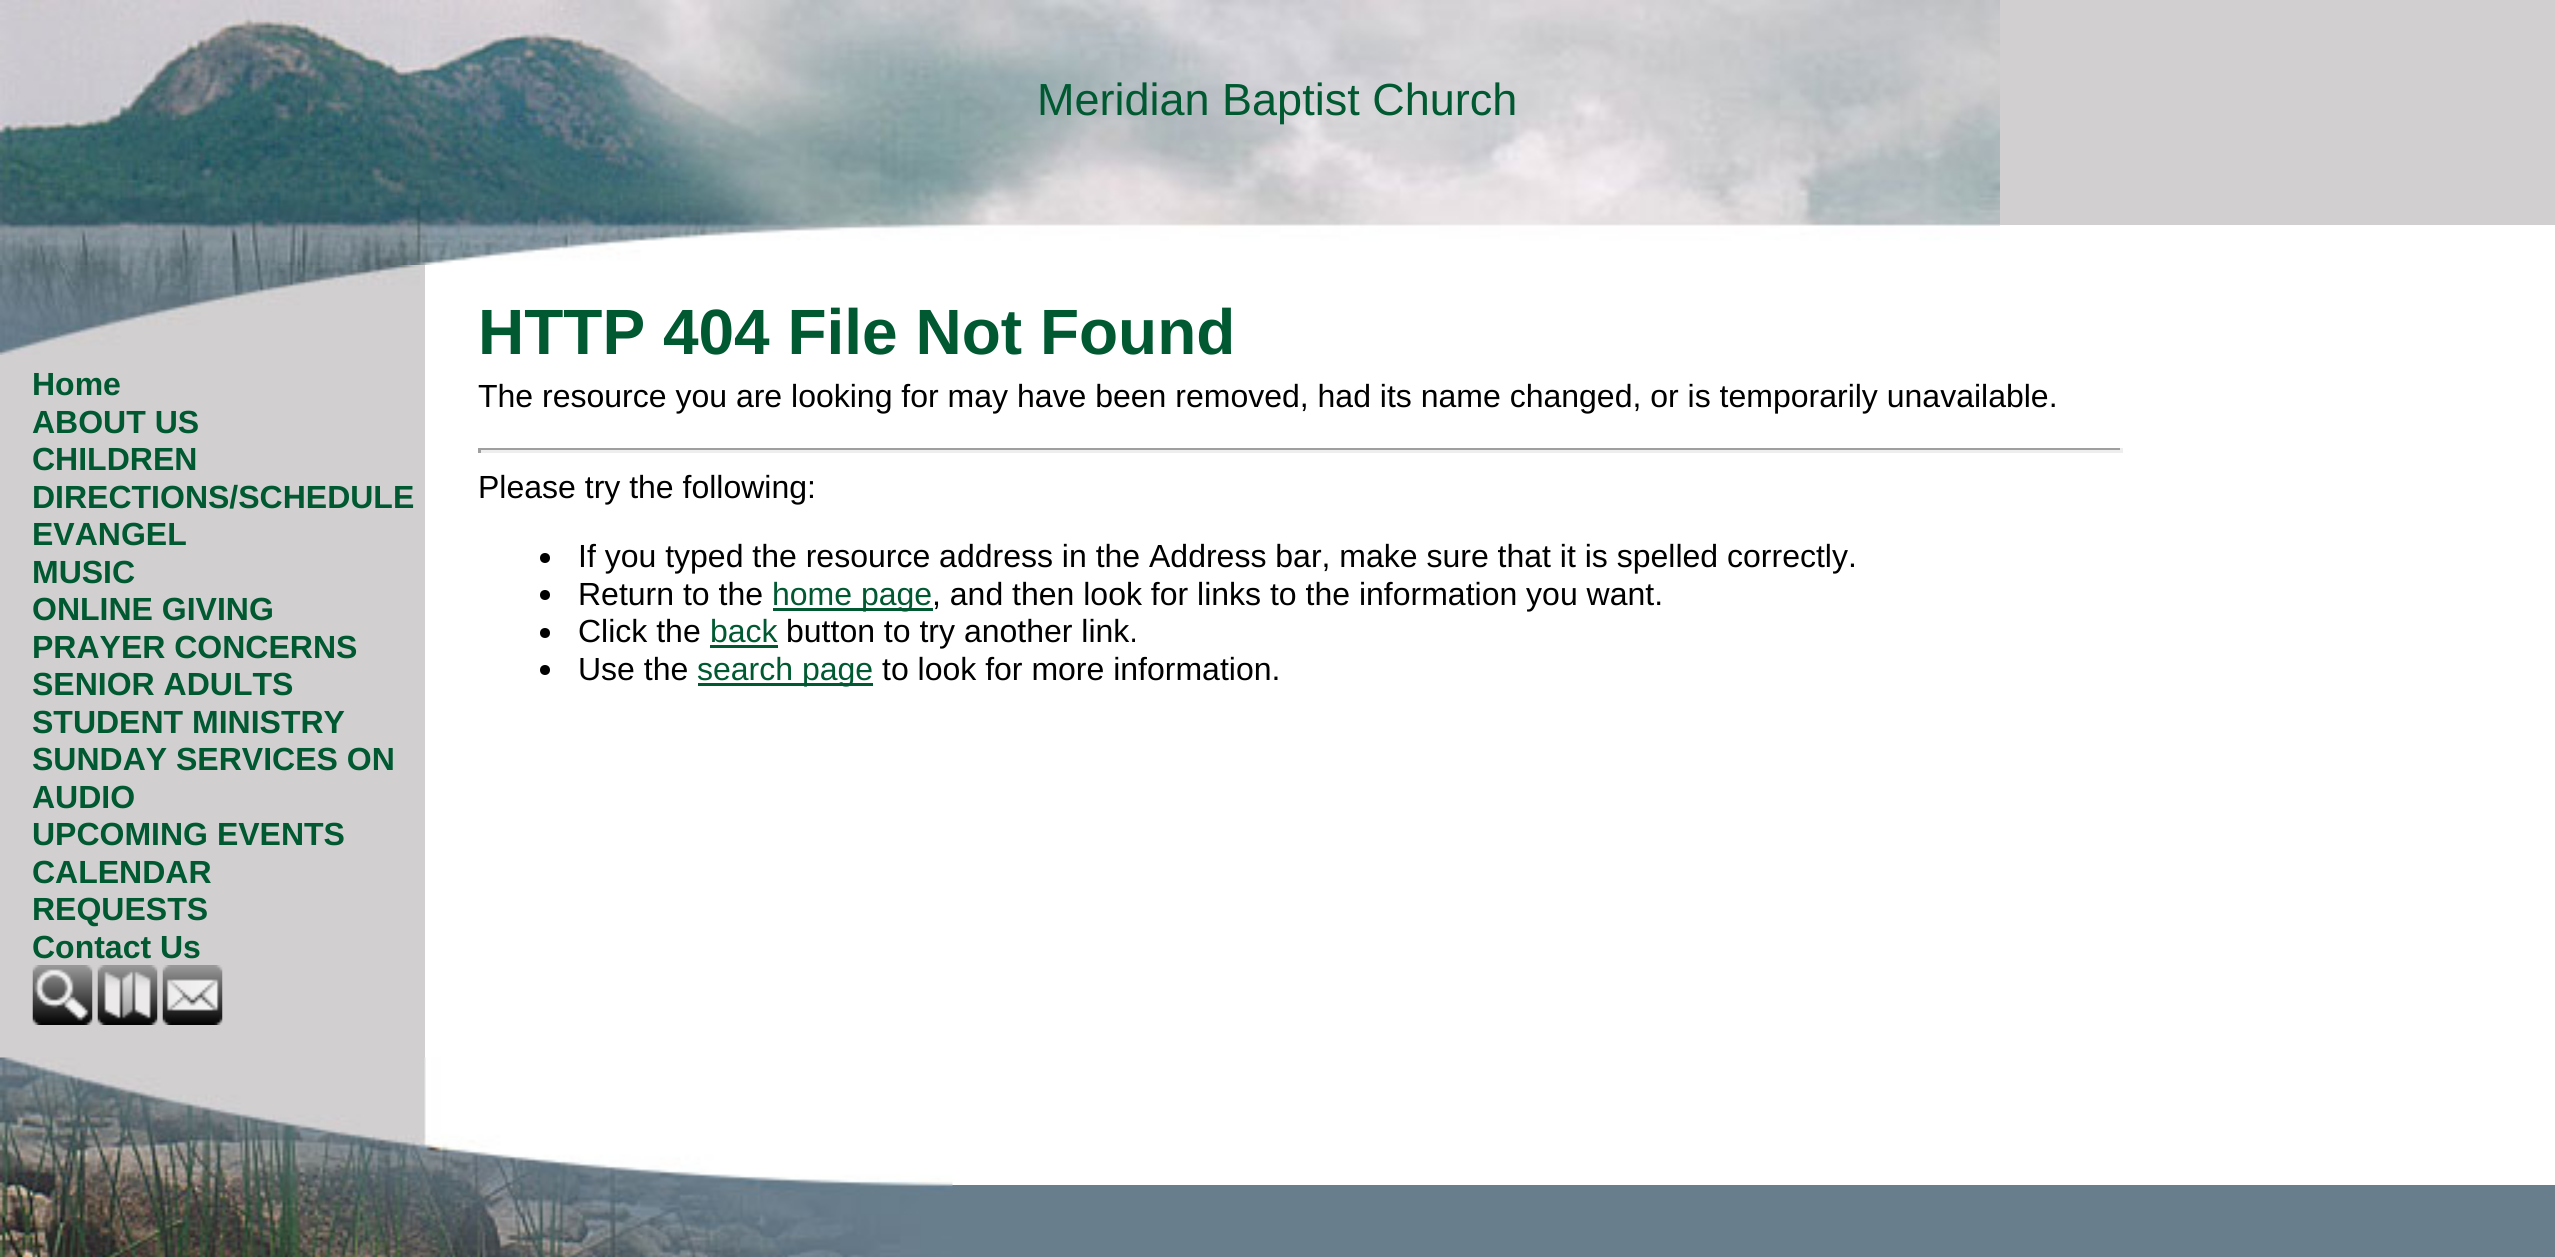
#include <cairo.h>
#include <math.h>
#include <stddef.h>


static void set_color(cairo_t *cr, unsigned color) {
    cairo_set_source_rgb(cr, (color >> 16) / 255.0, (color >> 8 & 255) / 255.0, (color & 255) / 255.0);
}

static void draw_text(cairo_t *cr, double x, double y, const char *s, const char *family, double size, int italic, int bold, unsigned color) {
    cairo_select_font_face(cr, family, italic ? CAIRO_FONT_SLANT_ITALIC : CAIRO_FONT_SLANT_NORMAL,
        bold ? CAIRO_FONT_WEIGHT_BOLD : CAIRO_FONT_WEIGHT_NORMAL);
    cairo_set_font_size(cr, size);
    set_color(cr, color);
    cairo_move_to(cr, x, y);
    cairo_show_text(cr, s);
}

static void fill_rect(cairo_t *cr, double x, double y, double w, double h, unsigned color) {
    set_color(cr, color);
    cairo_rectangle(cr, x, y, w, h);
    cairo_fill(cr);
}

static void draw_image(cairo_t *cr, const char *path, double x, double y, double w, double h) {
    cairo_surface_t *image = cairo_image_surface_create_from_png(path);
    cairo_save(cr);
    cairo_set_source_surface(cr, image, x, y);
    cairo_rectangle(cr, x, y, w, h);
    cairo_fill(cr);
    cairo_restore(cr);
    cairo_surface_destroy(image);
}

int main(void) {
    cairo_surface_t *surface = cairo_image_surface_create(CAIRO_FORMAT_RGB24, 2555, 1257);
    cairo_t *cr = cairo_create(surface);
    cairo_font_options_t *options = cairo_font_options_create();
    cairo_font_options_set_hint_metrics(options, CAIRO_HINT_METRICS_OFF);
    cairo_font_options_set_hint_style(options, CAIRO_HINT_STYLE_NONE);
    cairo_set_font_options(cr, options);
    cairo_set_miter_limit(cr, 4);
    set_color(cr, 0xFFFFFF);
    cairo_paint(cr);
    fill_rect(cr, 0, 265, 425, 793, 0xD1CFD0);
    fill_rect(cr, 2000, 0, 555, 225, 0xD1CFD0);
    draw_image(cr, "assets/img1.png", 0, 0, 2000, 265);
    draw_text(cr, 1037, 115, "Meridian Baptist Church", "Liberation Sans", 45, 0, 0, 0x005931);
    draw_image(cr, "assets/img2.png", 0, 265, 420, 90);
    draw_text(cr, 32, 395, "Home", "Liberation Sans", 32, 0, 1, 0x005931);
    draw_text(cr, 32, 433, "ABOUT US", "Liberation Sans", 32, 0, 1, 0x005931);
    draw_text(cr, 32, 470, "CHILDREN", "Liberation Sans", 32, 0, 1, 0x005931);
    draw_text(cr, 32, 508, "DIRECTIONS/SCHEDULE", "Liberation Sans", 32, 0, 1, 0x005931);
    draw_text(cr, 32, 545, "EVANGEL", "Liberation Sans", 32, 0, 1, 0x005931);
    draw_text(cr, 32, 583, "MUSIC", "Liberation Sans", 32, 0, 1, 0x005931);
    draw_text(cr, 32, 620, "ONLINE GIVING", "Liberation Sans", 32, 0, 1, 0x005931);
    draw_text(cr, 32, 658, "PRAYER CONCERNS", "Liberation Sans", 32, 0, 1, 0x005931);
    draw_text(cr, 32, 695, "SENIOR ADULTS", "Liberation Sans", 32, 0, 1, 0x005931);
    draw_text(cr, 32, 733, "STUDENT MINISTRY", "Liberation Sans", 32, 0, 1, 0x005931);
    draw_text(cr, 32, 770, "SUNDAY SERVICES ON", "Liberation Sans", 32, 0, 1, 0x005931);
    draw_text(cr, 32, 808, "AUDIO", "Liberation Sans", 32, 0, 1, 0x005931);
    draw_text(cr, 32, 845, "UPCOMING EVENTS", "Liberation Sans", 32, 0, 1, 0x005931);
    draw_text(cr, 32, 883, "CALENDAR", "Liberation Sans", 32, 0, 1, 0x005931);
    draw_text(cr, 32, 920, "REQUESTS", "Liberation Sans", 32, 0, 1, 0x005931);
    draw_text(cr, 32, 958, "Contact Us", "Liberation Sans", 32, 0, 1, 0x005931);
    draw_image(cr, "assets/img3.png", 32, 965, 61, 60);
    draw_image(cr, "assets/img4.png", 97, 965, 61, 60);
    draw_image(cr, "assets/img5.png", 162, 965, 61, 60);
    draw_text(cr, 478, 354, "HTTP 404 File Not Found", "Liberation Sans", 64, 0, 1, 0x005931);
    draw_text(cr, 478, 407, "The resource you are looking for may have been removed, had its name changed, or is temporarily unavailable.", "Liberation Sans", 32, 0, 0, 0x000000);
    fill_rect(cr, 478, 448, 1645, 2, 0x9F9F9F);
    fill_rect(cr, 2120, 448, 3, 5, 0xEEEEEE);
    fill_rect(cr, 478, 450, 1645, 3, 0xEEEEEE);
    fill_rect(cr, 478, 448, 3, 5, 0x9F9F9F);
    draw_text(cr, 478, 498, "Please try the following:", "Liberation Sans", 32, 0, 0, 0x000000);
    cairo_new_path(cr);
    cairo_arc(cr, 545, 558, 5, 0, 2 * M_PI);
    cairo_fill(cr);
    draw_text(cr, 578, 567, "If you typed the resource address in the Address bar, make sure that it is spelled correctly.", "Liberation Sans", 32, 0, 0, 0x000000);
    cairo_new_path(cr);
    cairo_arc(cr, 545, 595, 5, 0, 2 * M_PI);
    cairo_fill(cr);
    draw_text(cr, 578, 605, "Return to the", "Liberation Sans", 32, 0, 0, 0x000000);
    fill_rect(cr, 773, 608, 160, 3, 0x005931);
    draw_text(cr, 772, 605, "home page", "Liberation Sans", 32, 0, 0, 0x005931);
    draw_text(cr, 932, 605, ", and then look for links to the information you want.", "Liberation Sans", 32, 0, 0, 0x000000);
    cairo_new_path(cr);
    cairo_arc(cr, 545, 633, 5, 0, 2 * M_PI);
    cairo_fill(cr);
    draw_text(cr, 578, 642, "Click the", "Liberation Sans", 32, 0, 0, 0x000000);
    draw_text(cr, 710, 642, "back", "Liberation Sans", 32, 0, 0, 0x005931);
    fill_rect(cr, 710, 645, 68, 3, 0x005931);
    draw_text(cr, 786, 642, "button to try another link.", "Liberation Sans", 32, 0, 0, 0x000000);
    cairo_new_path(cr);
    cairo_arc(cr, 545, 670, 5, 0, 2 * M_PI);
    cairo_fill(cr);
    draw_text(cr, 578, 680, "Use the", "Liberation Sans", 32, 0, 0, 0x000000);
    fill_rect(cr, 698, 683, 175, 3, 0x005931);
    draw_text(cr, 697, 680, "search page", "Liberation Sans", 32, 0, 0, 0x005931);
    draw_text(cr, 882, 680, "to look for more information.", "Liberation Sans", 32, 0, 0, 0x000000);
    fill_rect(cr, 952, 1185, 1603, 72, 0x687E8D);
    draw_image(cr, "assets/img6.png", 0, 1057, 953, 200);
    cairo_surface_write_to_png(surface, "output.png");
    cairo_font_options_destroy(options);
    cairo_destroy(cr);
    cairo_surface_destroy(surface);
    return 0;
}
